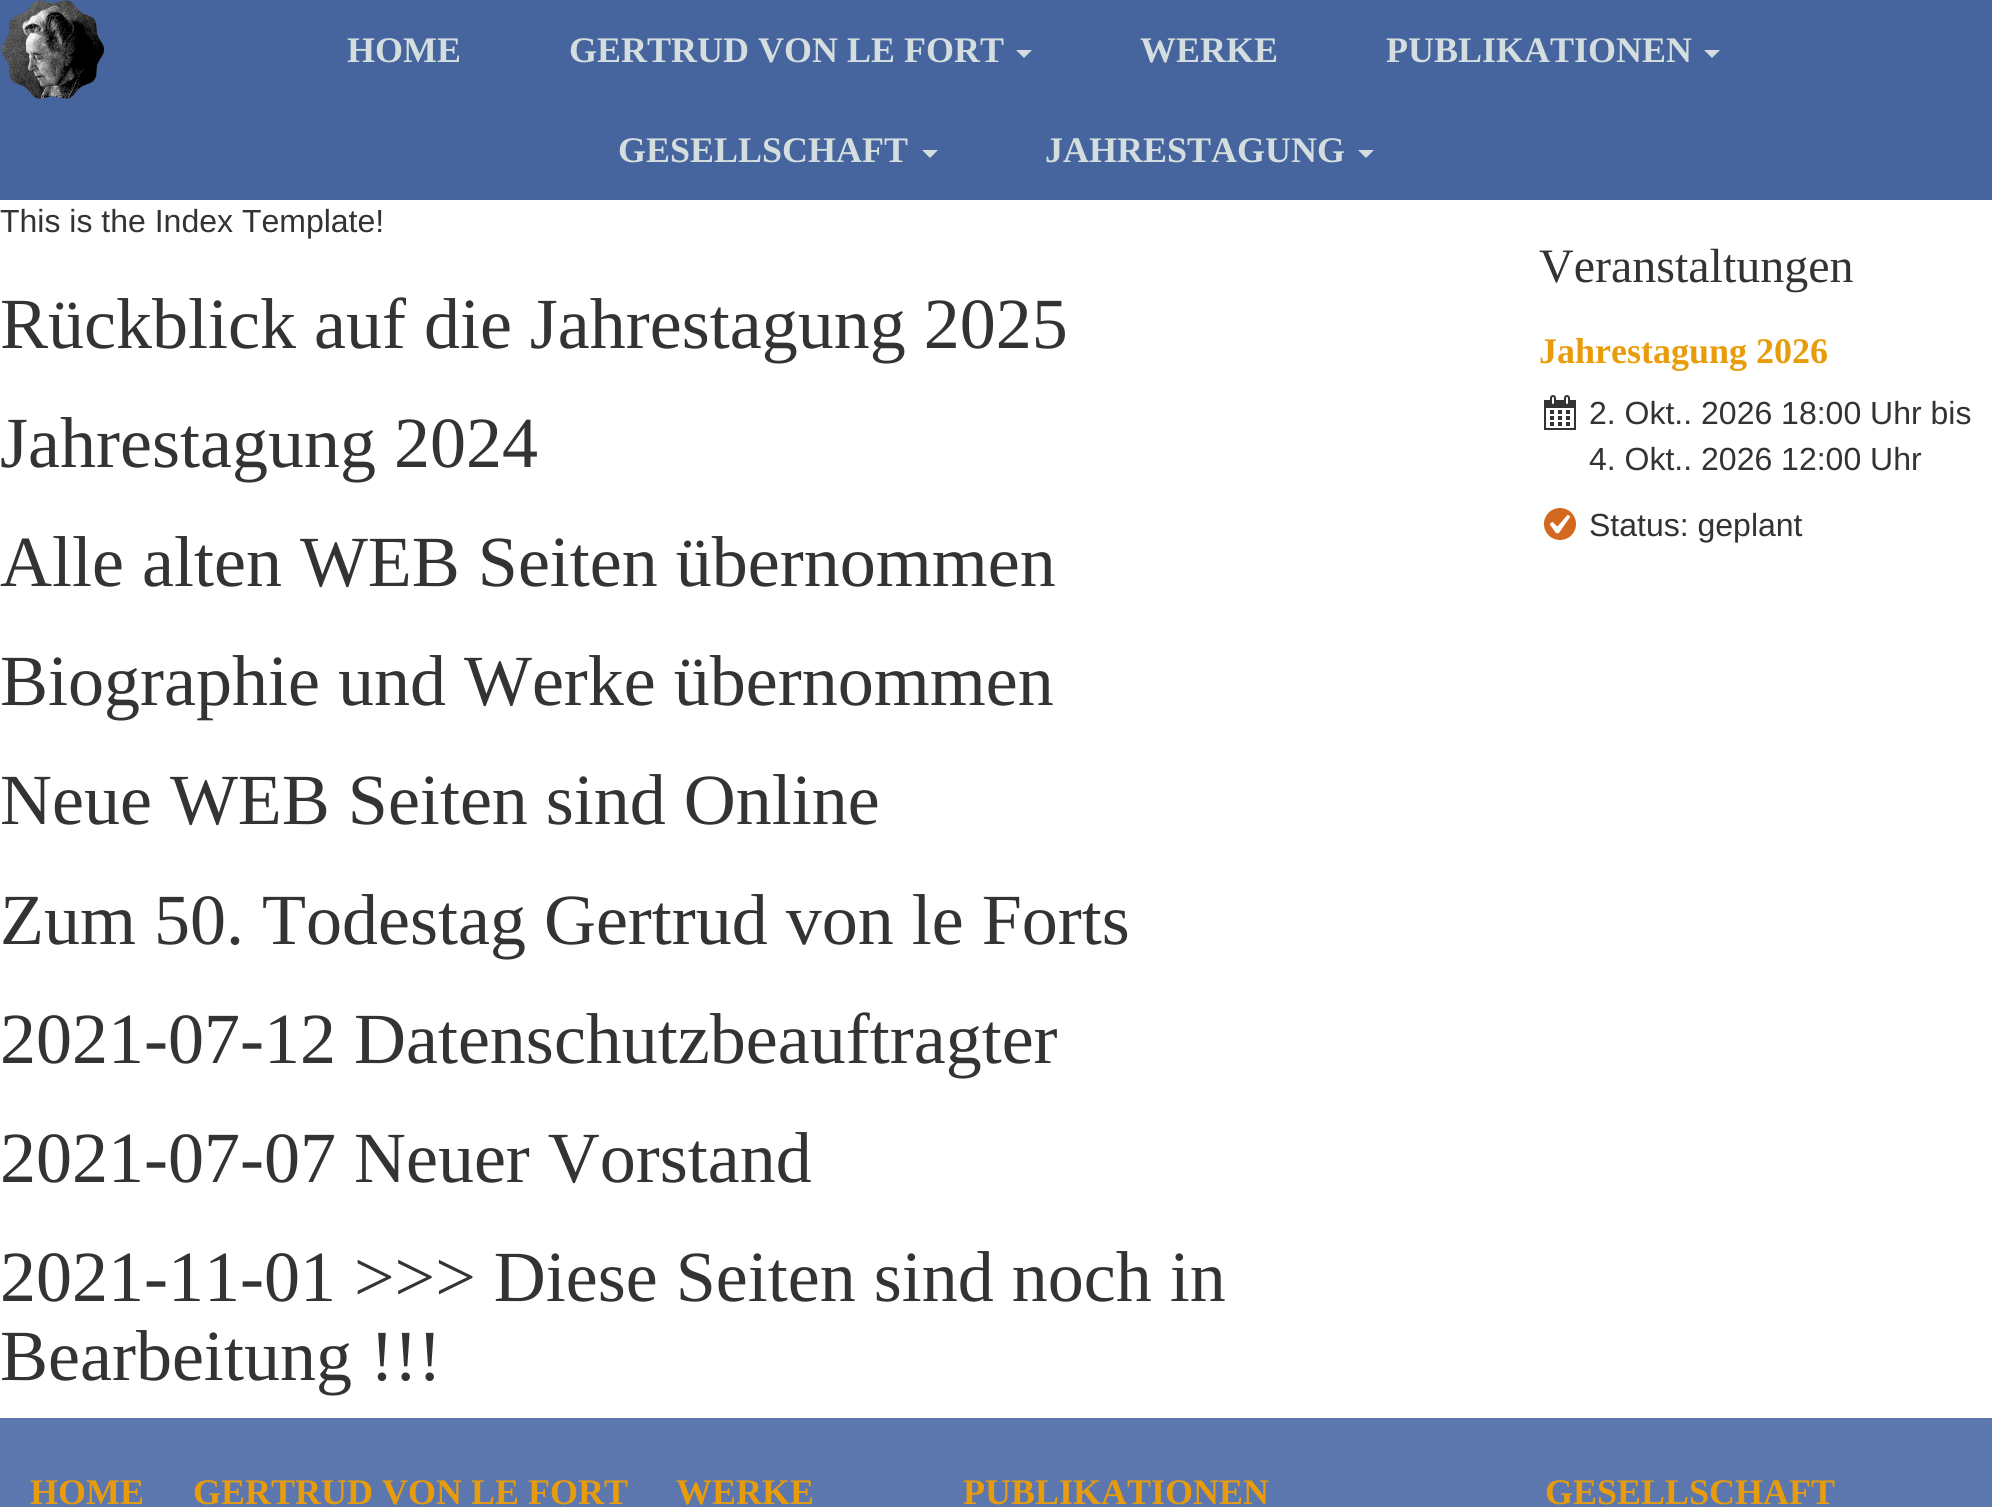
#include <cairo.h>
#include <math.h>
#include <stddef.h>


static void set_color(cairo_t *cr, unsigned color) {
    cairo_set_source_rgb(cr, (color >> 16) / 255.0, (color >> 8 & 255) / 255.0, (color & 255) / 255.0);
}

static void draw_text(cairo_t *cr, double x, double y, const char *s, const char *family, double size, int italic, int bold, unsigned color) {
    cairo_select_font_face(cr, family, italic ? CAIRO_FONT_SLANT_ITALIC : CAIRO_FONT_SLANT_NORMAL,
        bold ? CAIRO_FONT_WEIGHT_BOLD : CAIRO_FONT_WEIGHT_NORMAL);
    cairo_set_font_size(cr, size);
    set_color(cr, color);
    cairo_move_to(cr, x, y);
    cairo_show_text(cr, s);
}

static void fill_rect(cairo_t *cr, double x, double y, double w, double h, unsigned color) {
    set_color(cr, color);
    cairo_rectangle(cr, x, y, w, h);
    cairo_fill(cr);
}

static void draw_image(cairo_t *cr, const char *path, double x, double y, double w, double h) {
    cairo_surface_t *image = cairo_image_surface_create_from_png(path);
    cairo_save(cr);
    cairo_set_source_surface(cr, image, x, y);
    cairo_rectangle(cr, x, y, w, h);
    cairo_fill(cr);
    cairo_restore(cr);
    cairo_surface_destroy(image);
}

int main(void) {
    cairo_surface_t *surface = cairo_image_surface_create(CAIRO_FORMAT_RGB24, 1992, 1507);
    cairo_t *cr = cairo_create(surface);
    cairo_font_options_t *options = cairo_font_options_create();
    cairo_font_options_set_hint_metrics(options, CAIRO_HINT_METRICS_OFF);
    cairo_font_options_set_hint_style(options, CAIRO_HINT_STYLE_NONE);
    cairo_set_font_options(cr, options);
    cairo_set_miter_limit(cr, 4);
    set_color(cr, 0xFFFFFF);
    cairo_paint(cr);
    fill_rect(cr, 0, 0, 1992, 200, 0x46649D);
    draw_image(cr, "assets/img1.png", 1, 0, 104, 99);
    draw_text(cr, 347, 62, "HOME", "Liberation Serif", 36, 0, 1, 0xD4DEDE);
    draw_text(cr, 569, 62, "GERTRUD VON LE FORT", "Liberation Serif", 36, 0, 1, 0xD4DEDE);
    cairo_new_path(cr);
    cairo_move_to(cr, 1016, 50);
    cairo_line_to(cr, 1032, 50);
    cairo_line_to(cr, 1024, 58);
    cairo_close_path(cr);
    cairo_fill(cr);
    draw_text(cr, 1140, 62, "WERKE", "Liberation Serif", 36, 0, 1, 0xD4DEDE);
    draw_text(cr, 1386, 62, "PUBLIKATIONEN", "Liberation Serif", 36, 0, 1, 0xD4DEDE);
    cairo_new_path(cr);
    cairo_move_to(cr, 1704, 50);
    cairo_line_to(cr, 1720, 50);
    cairo_line_to(cr, 1712, 58);
    cairo_close_path(cr);
    cairo_fill(cr);
    draw_text(cr, 618, 162, "GESELLSCHAFT", "Liberation Serif", 36, 0, 1, 0xD4DEDE);
    cairo_new_path(cr);
    cairo_move_to(cr, 922, 150);
    cairo_line_to(cr, 938, 150);
    cairo_line_to(cr, 930, 158);
    cairo_close_path(cr);
    cairo_fill(cr);
    draw_text(cr, 1045, 162, "JAHRESTAGUNG", "Liberation Serif", 36, 0, 1, 0xD4DEDE);
    cairo_new_path(cr);
    cairo_move_to(cr, 1358, 150);
    cairo_line_to(cr, 1374, 150);
    cairo_line_to(cr, 1366, 158);
    cairo_close_path(cr);
    cairo_fill(cr);
    draw_text(cr, 0, 232, "This is the Index Template!", "Liberation Sans", 32, 0, 0, 0x333333);
    draw_text(cr, 0, 348, "Rückblick auf die Jahrestagung 2025", "Liberation Serif", 72, 0, 0, 0x333333);
    draw_text(cr, 0, 467, "Jahrestagung 2024", "Liberation Serif", 72, 0, 0, 0x333333);
    draw_text(cr, 0, 586, "Alle alten WEB Seiten übernommen", "Liberation Serif", 72, 0, 0, 0x333333);
    draw_text(cr, 0, 705, "Biographie und Werke übernommen", "Liberation Serif", 72, 0, 0, 0x333333);
    draw_text(cr, 0, 824, "Neue WEB Seiten sind Online", "Liberation Serif", 72, 0, 0, 0x333333);
    draw_text(cr, 0, 944, "Zum 50. Todestag Gertrud von le Forts", "Liberation Serif", 72, 0, 0, 0x333333);
    draw_text(cr, 0, 1063, "2021-07-12 Datenschutzbeauftragter", "Liberation Serif", 72, 0, 0, 0x333333);
    draw_text(cr, 0, 1182, "2021-07-07 Neuer Vorstand", "Liberation Serif", 72, 0, 0, 0x333333);
    draw_text(cr, 0, 1301, "2021-11-01 >>> Diese Seiten sind noch in", "Liberation Serif", 72, 0, 0, 0x333333);
    draw_text(cr, 0, 1380, "Bearbeitung !!!", "Liberation Serif", 72, 0, 0, 0x333333);
    draw_text(cr, 1539, 282, "Veranstaltungen", "Liberation Serif", 48, 0, 0, 0x333333);
    draw_text(cr, 1539, 363, "Jahrestagung 2026", "Liberation Serif", 36, 0, 1, 0xE89C0C);
    draw_image(cr, "assets/img2.png", 1544, 395, 32, 35);
    draw_text(cr, 1589, 424, "2. Okt.. 2026 18:00 Uhr bis", "Liberation Sans", 32, 0, 0, 0x333333);
    draw_text(cr, 1589, 470, "4. Okt.. 2026 12:00 Uhr", "Liberation Sans", 32, 0, 0, 0x333333);
    draw_image(cr, "assets/img3.png", 1544, 508, 32, 32);
    draw_text(cr, 1589, 536, "Status: geplant", "Liberation Sans", 32, 0, 0, 0x333333);
    fill_rect(cr, 0, 1418, 1992, 89, 0x5B77AD);
    draw_text(cr, 30, 1504, "HOME", "Liberation Serif", 36, 0, 1, 0xE89C0C);
    draw_text(cr, 193, 1504, "GERTRUD VON LE FORT", "Liberation Serif", 36, 0, 1, 0xE89C0C);
    draw_text(cr, 676, 1504, "WERKE", "Liberation Serif", 36, 0, 1, 0xE89C0C);
    draw_text(cr, 963, 1504, "PUBLIKATIONEN", "Liberation Serif", 36, 0, 1, 0xE89C0C);
    draw_text(cr, 1545, 1504, "GESELLSCHAFT", "Liberation Serif", 36, 0, 1, 0xE89C0C);
    cairo_surface_write_to_png(surface, "output.png");
    cairo_font_options_destroy(options);
    cairo_destroy(cr);
    cairo_surface_destroy(surface);
    return 0;
}
